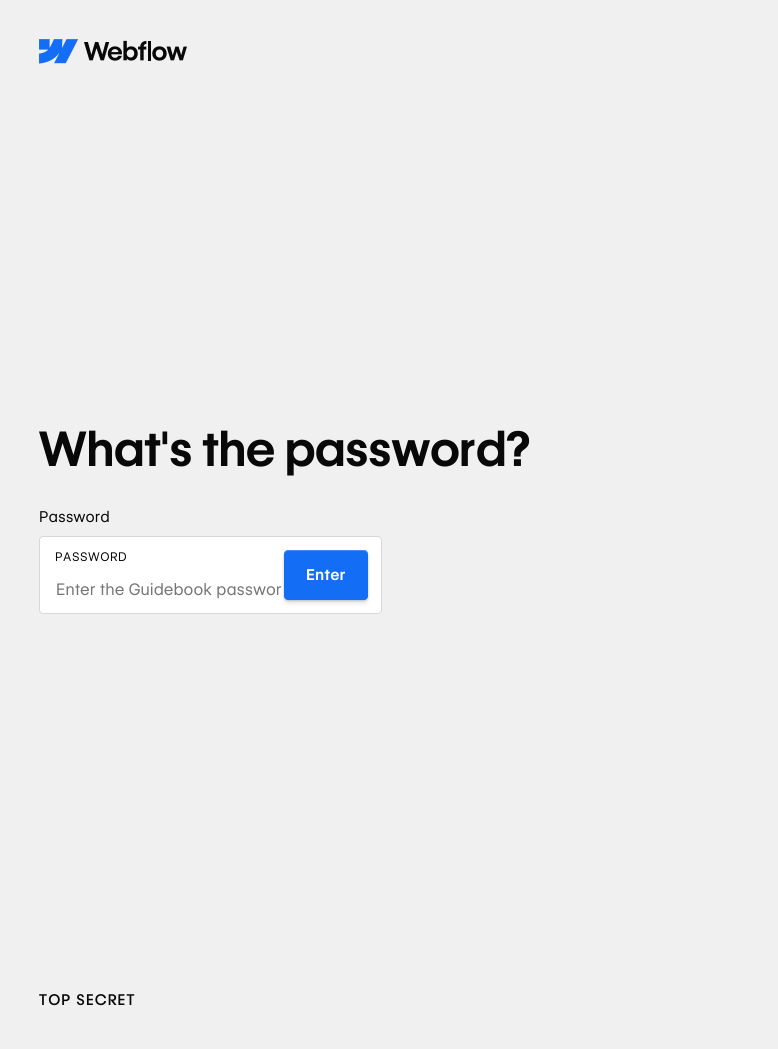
#include <cairo.h>
#include <math.h>
#include <stddef.h>


static void set_color(cairo_t *cr, unsigned color) {
    cairo_set_source_rgb(cr, (color >> 16) / 255.0, (color >> 8 & 255) / 255.0, (color & 255) / 255.0);
}

static void draw_text(cairo_t *cr, double x, double y, const char *s, const char *family, double size, int italic, int bold, unsigned color) {
    cairo_select_font_face(cr, family, italic ? CAIRO_FONT_SLANT_ITALIC : CAIRO_FONT_SLANT_NORMAL,
        bold ? CAIRO_FONT_WEIGHT_BOLD : CAIRO_FONT_WEIGHT_NORMAL);
    cairo_set_font_size(cr, size);
    set_color(cr, color);
    cairo_move_to(cr, x, y);
    cairo_show_text(cr, s);
}

static void draw_spaced(cairo_t *cr, double x, double y, const char *s, double letter, double word) {
    cairo_move_to(cr, x, y);
    while (*s) {
        char ch[5] = {0};
        int n = 0;
        do ch[n++] = *s++; while ((*s & 0xC0) == 0x80);
        cairo_show_text(cr, ch);
        cairo_rel_move_to(cr, letter + word * (*ch == ' '), 0);
    }
}

static void rounded_rect(cairo_t *cr, double x, double y, double w, double h, double r) {
    cairo_new_sub_path(cr);
    cairo_arc(cr, x + w - r, y + h - r, r, 0, M_PI / 2);
    cairo_arc(cr, x + r, y + h - r, r, M_PI / 2, M_PI);
    cairo_arc(cr, x + r, y + r, r, M_PI, 1.5 * M_PI);
    cairo_arc(cr, x + w - r, y + r, r, 1.5 * M_PI, 2 * M_PI);
    cairo_close_path(cr);
}

static void draw_shadow(cairo_t *cr, double x, double y, double w, double h, double r, double blur, double alpha) {
    cairo_push_group_with_content(cr, CAIRO_CONTENT_ALPHA);
    cairo_set_operator(cr, CAIRO_OPERATOR_SOURCE);
    for (int i = 15; i >= -15 && fmin(w, h) + blur * i / 3 > 0; i -= 2) {
        double e = blur * i / 6;
        cairo_set_source_rgba(cr, 0, 0, 0, alpha * erfc((i - 1) / 8.5) / 2);
        rounded_rect(cr, x - e, y - e, w + 2 * e, h + 2 * e, fmax(0, fmin(r + e + blur * .6, fmin(w, h) / 2 + e)));
        cairo_fill(cr);
    }
    cairo_pattern_t *soft = cairo_pop_group(cr);
    cairo_mask(cr, soft);
    cairo_pattern_destroy(soft);
}

static void draw_image(cairo_t *cr, const char *path, double x, double y, double w, double h) {
    cairo_surface_t *image = cairo_image_surface_create_from_png(path);
    cairo_save(cr);
    cairo_set_source_surface(cr, image, x, y);
    cairo_rectangle(cr, x, y, w, h);
    cairo_fill(cr);
    cairo_restore(cr);
    cairo_surface_destroy(image);
}

int main(void) {
    cairo_surface_t *surface = cairo_image_surface_create(CAIRO_FORMAT_RGB24, 778, 1049);
    cairo_t *cr = cairo_create(surface);
    cairo_font_options_t *options = cairo_font_options_create();
    cairo_font_options_set_hint_metrics(options, CAIRO_HINT_METRICS_OFF);
    cairo_font_options_set_hint_style(options, CAIRO_HINT_STYLE_NONE);
    cairo_set_font_options(cr, options);
    cairo_set_miter_limit(cr, 4);
    set_color(cr, 0xF0F0F0);
    cairo_paint(cr);
    draw_image(cr, "assets/img1.png", 39, 39, 148, 25);
    cairo_select_font_face(cr, "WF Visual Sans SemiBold", CAIRO_FONT_SLANT_NORMAL, CAIRO_FONT_WEIGHT_NORMAL);
    cairo_set_font_size(cr, 48);
    set_color(cr, 0x080808);
    draw_spaced(cr, 39, 466, "What's the password?", 0.5, 0);
    draw_text(cr, 39, 522, "Password", "WF Visual Sans", 15, 0, 0, 0x080808);
    set_color(cr, 0xFFFFFF);
    rounded_rect(cr, 39.5, 536.5, 342, 77, 3.5);
    cairo_fill_preserve(cr);
    set_color(cr, 0xD8D8D8);
    cairo_set_line_width(cr, 1);
    cairo_stroke(cr);
    cairo_set_font_size(cr, 12);
    set_color(cr, 0x080808);
    draw_spaced(cr, 55, 561, "PASSWORD", 0.5, 0);
    set_color(cr, 0x080808);
    draw_shadow(cr, 284, 551, 84, 50, 4, 1, 0.2);
    draw_shadow(cr, 284, 554, 84, 50, 4, 2, 0.08);
    set_color(cr, 0x146EF5);
    rounded_rect(cr, 284, 550, 84, 50, 4);
    cairo_fill(cr);
    cairo_set_source_rgba(cr, 1, 1, 1, 0.2);
    cairo_new_path(cr);
    cairo_move_to(cr, 288, 551);
    cairo_line_to(cr, 364, 551);
    cairo_curve_to(cr, 366, 551, 368, 553, 368, 555);
    cairo_curve_to(cr, 368, 547, 356, 550, 351, 550);
    cairo_line_to(cr, 301, 550);
    cairo_curve_to(cr, 296, 550, 284, 547, 284, 555);
    cairo_curve_to(cr, 284, 553, 286, 551, 288, 551);
    cairo_close_path(cr);
    cairo_fill(cr);
    draw_text(cr, 306, 580, "Enter", "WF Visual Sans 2 SemiBold", 15, 0, 0, 0xFFFFFF);
    draw_text(cr, 56, 595, "Enter the Guidebook passwor", "WF Visual Sans", 16, 0, 0, 0x757575);
    cairo_select_font_face(cr, "WF Visual Sans Medium", CAIRO_FONT_SLANT_NORMAL, CAIRO_FONT_WEIGHT_NORMAL);
    cairo_set_font_size(cr, 15);
    set_color(cr, 0x080808);
    draw_spaced(cr, 39, 1005, "TOP SECRET", 1.5, 0);
    cairo_surface_write_to_png(surface, "output.png");
    cairo_font_options_destroy(options);
    cairo_destroy(cr);
    cairo_surface_destroy(surface);
    return 0;
}
